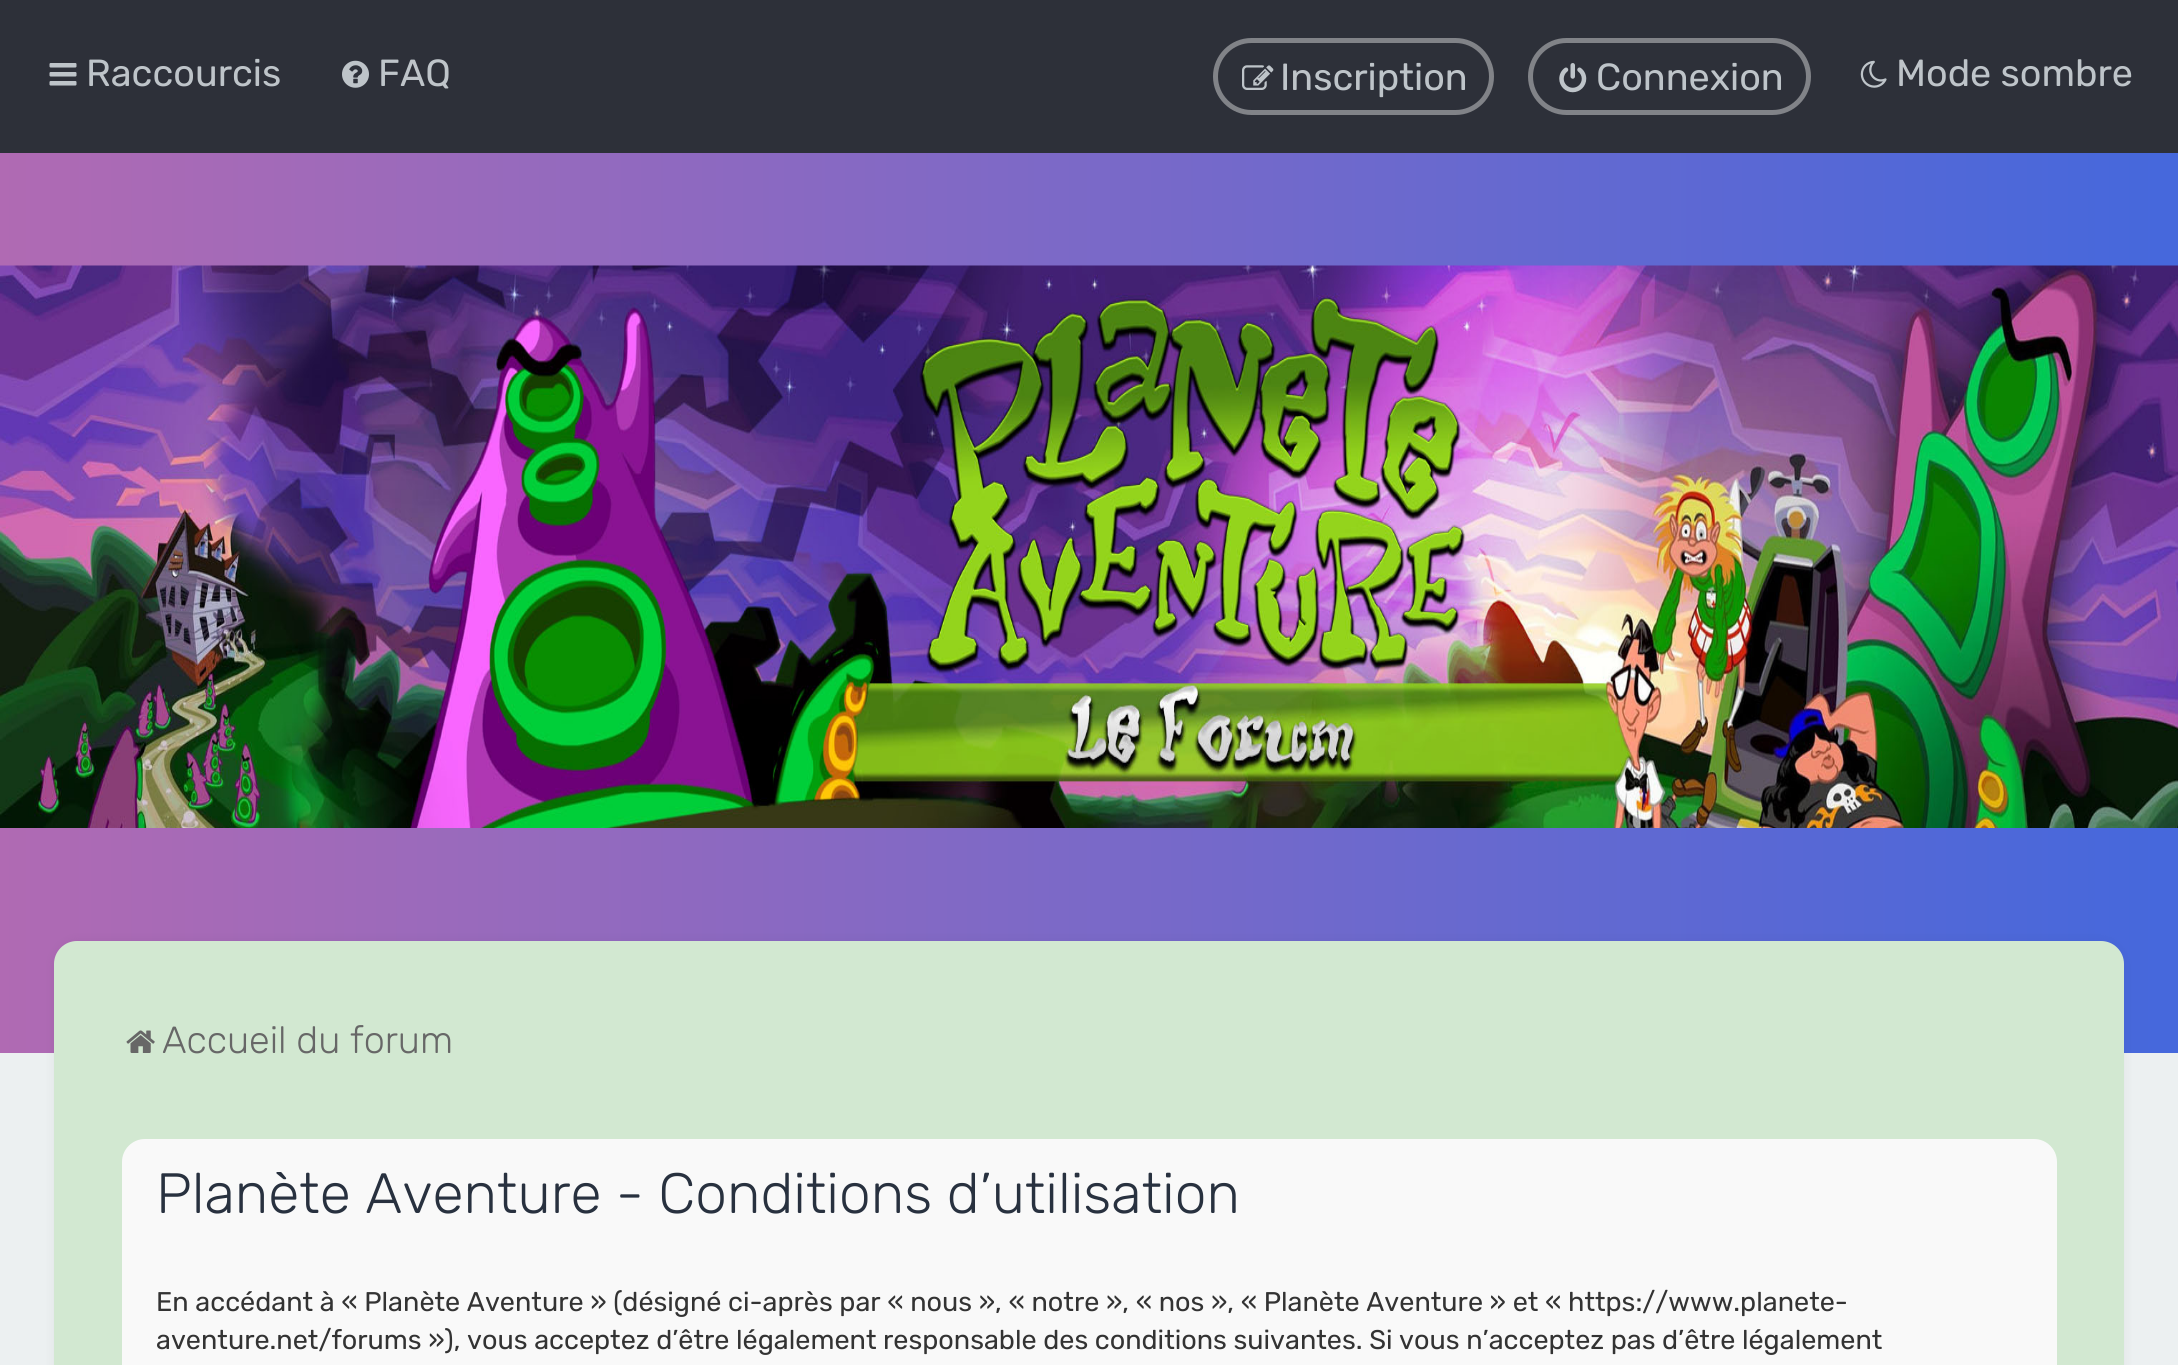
#include <cairo.h>
#include <math.h>
#include <stddef.h>


static void set_color(cairo_t *cr, unsigned color) {
    cairo_set_source_rgb(cr, (color >> 16) / 255.0, (color >> 8 & 255) / 255.0, (color & 255) / 255.0);
}

static void draw_text(cairo_t *cr, double x, double y, const char *s, const char *family, double size, int italic, int bold, unsigned color) {
    cairo_select_font_face(cr, family, italic ? CAIRO_FONT_SLANT_ITALIC : CAIRO_FONT_SLANT_NORMAL,
        bold ? CAIRO_FONT_WEIGHT_BOLD : CAIRO_FONT_WEIGHT_NORMAL);
    cairo_set_font_size(cr, size);
    set_color(cr, color);
    cairo_move_to(cr, x, y);
    cairo_show_text(cr, s);
}

static void fill_rect(cairo_t *cr, double x, double y, double w, double h, unsigned color) {
    set_color(cr, color);
    cairo_rectangle(cr, x, y, w, h);
    cairo_fill(cr);
}

static void rounded_rect(cairo_t *cr, double x, double y, double w, double h, double r) {
    cairo_new_sub_path(cr);
    cairo_arc(cr, x + w - r, y + h - r, r, 0, M_PI / 2);
    cairo_arc(cr, x + r, y + h - r, r, M_PI / 2, M_PI);
    cairo_arc(cr, x + r, y + r, r, M_PI, 1.5 * M_PI);
    cairo_arc(cr, x + w - r, y + r, r, 1.5 * M_PI, 2 * M_PI);
    cairo_close_path(cr);
}

static void draw_shadow(cairo_t *cr, double x, double y, double w, double h, double r, double blur, double alpha) {
    cairo_push_group_with_content(cr, CAIRO_CONTENT_ALPHA);
    cairo_set_operator(cr, CAIRO_OPERATOR_SOURCE);
    for (int i = 15; i >= -15 && fmin(w, h) + blur * i / 3 > 0; i -= 2) {
        double e = blur * i / 6;
        cairo_set_source_rgba(cr, 0, 0, 0, alpha * erfc((i - 1) / 8.5) / 2);
        rounded_rect(cr, x - e, y - e, w + 2 * e, h + 2 * e, fmax(0, fmin(r + e + blur * .6, fmin(w, h) / 2 + e)));
        cairo_fill(cr);
    }
    cairo_pattern_t *soft = cairo_pop_group(cr);
    cairo_mask(cr, soft);
    cairo_pattern_destroy(soft);
}

static void draw_image(cairo_t *cr, const char *path, double x, double y, double w, double h) {
    cairo_surface_t *image = cairo_image_surface_create_from_png(path);
    cairo_save(cr);
    cairo_set_source_surface(cr, image, x, y);
    cairo_rectangle(cr, x, y, w, h);
    cairo_fill(cr);
    cairo_restore(cr);
    cairo_surface_destroy(image);
}

int main(void) {
    cairo_surface_t *surface = cairo_image_surface_create(CAIRO_FORMAT_RGB24, 2178, 1365);
    cairo_t *cr = cairo_create(surface);
    cairo_font_options_t *options = cairo_font_options_create();
    cairo_font_options_set_hint_metrics(options, CAIRO_HINT_METRICS_OFF);
    cairo_font_options_set_hint_style(options, CAIRO_HINT_STYLE_NONE);
    cairo_set_font_options(cr, options);
    cairo_set_miter_limit(cr, 4);
    cairo_pattern_t *gradient;
    set_color(cr, 0xECF0F1);
    cairo_paint(cr);
    fill_rect(cr, 0, 0, 2178, 153, 0x2D3039);
    draw_image(cr, "assets/img1.png", 49, 63, 28, 23);
    draw_text(cr, 86, 86, "Raccourcis", "Rubik", 37.75, 0, 0, 0xBEC4C9);
    draw_image(cr, "assets/img2.png", 342, 60, 27, 28);
    draw_text(cr, 378, 86, "FAQ", "Rubik", 37.75, 0, 0, 0xBEC4C9);
    rounded_rect(cr, 1215.5, 40.5, 276, 72, 36);
    set_color(cr, 0x818388);
    cairo_set_line_width(cr, 5);
    cairo_stroke(cr);
    draw_image(cr, "assets/img3.png", 1242, 65, 32, 25);
    draw_text(cr, 1280, 90, "Inscription", "Rubik", 37.75, 0, 0, 0xBEC4C9);
    rounded_rect(cr, 1530.5, 40.5, 278, 72, 36);
    set_color(cr, 0x818388);
    cairo_stroke(cr);
    draw_image(cr, "assets/img4.png", 1559, 63, 28, 30);
    draw_text(cr, 1596, 90, "Connexion", "Rubik", 37.75, 0, 0, 0xBEC4C9);
    draw_image(cr, "assets/img5.png", 1860, 60, 27, 28);
    draw_text(cr, 1896, 86, "Mode sombre", "Rubik", 37.75, 0, 0, 0xBEC4C9);
    gradient = cairo_pattern_create_linear(0, 603, 2178, 603);
    cairo_pattern_add_color_stop_rgba(gradient, 0, 0.69, 0.416, 0.702, 1);
    cairo_pattern_add_color_stop_rgba(gradient, 1, 0.271, 0.408, 0.863, 1);
    cairo_set_source(cr, gradient);
    cairo_pattern_destroy(gradient);
    cairo_rectangle(cr, 0, 153, 2178, 900);
    cairo_fill(cr);
    draw_image(cr, "assets/img6.png", 0, 265, 2178, 563);
    set_color(cr, 0x000000);
    draw_shadow(cr, 54, 941, 2070, 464, 23, 5.5, 0.05);
    set_color(cr, 0xD2E8D1);
    rounded_rect(cr, 54, 941, 2070, 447, 23);
    cairo_fill(cr);
    draw_image(cr, "assets/img7.png", 126, 1030, 29, 23);
    draw_text(cr, 162, 1053, "Accueil du forum", "Rubik Light", 37.75, 0, 0, 0x676767);
    set_color(cr, 0xF9F9F9);
    rounded_rect(cr, 122, 1139, 1935, 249, 23);
    cairo_fill(cr);
    cairo_save(cr);
    cairo_rectangle(cr, 155, 1172, 1868, 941);
    cairo_clip(cr);
    draw_text(cr, 156, 1213, "Planète Aventure - Conditions d’utilisation", "Rubik Light", 56.75, 0, 0, 0x28313F);
    cairo_restore(cr);
    draw_text(cr, 156, 1311, "En accédant à « Planète Aventure » (désigné ci-après par « nous », « notre », « nos », « Planète Aventure » et « https://www.planete-", "Rubik", 27, 0, 0, 0x333333);
    draw_text(cr, 156, 1349, "aventure.net/forums »), vous acceptez d’être légalement responsable des conditions suivantes. Si vous n’acceptez pas d’être légalement", "Rubik", 27, 0, 0, 0x333333);
    cairo_surface_write_to_png(surface, "output.png");
    cairo_font_options_destroy(options);
    cairo_destroy(cr);
    cairo_surface_destroy(surface);
    return 0;
}
